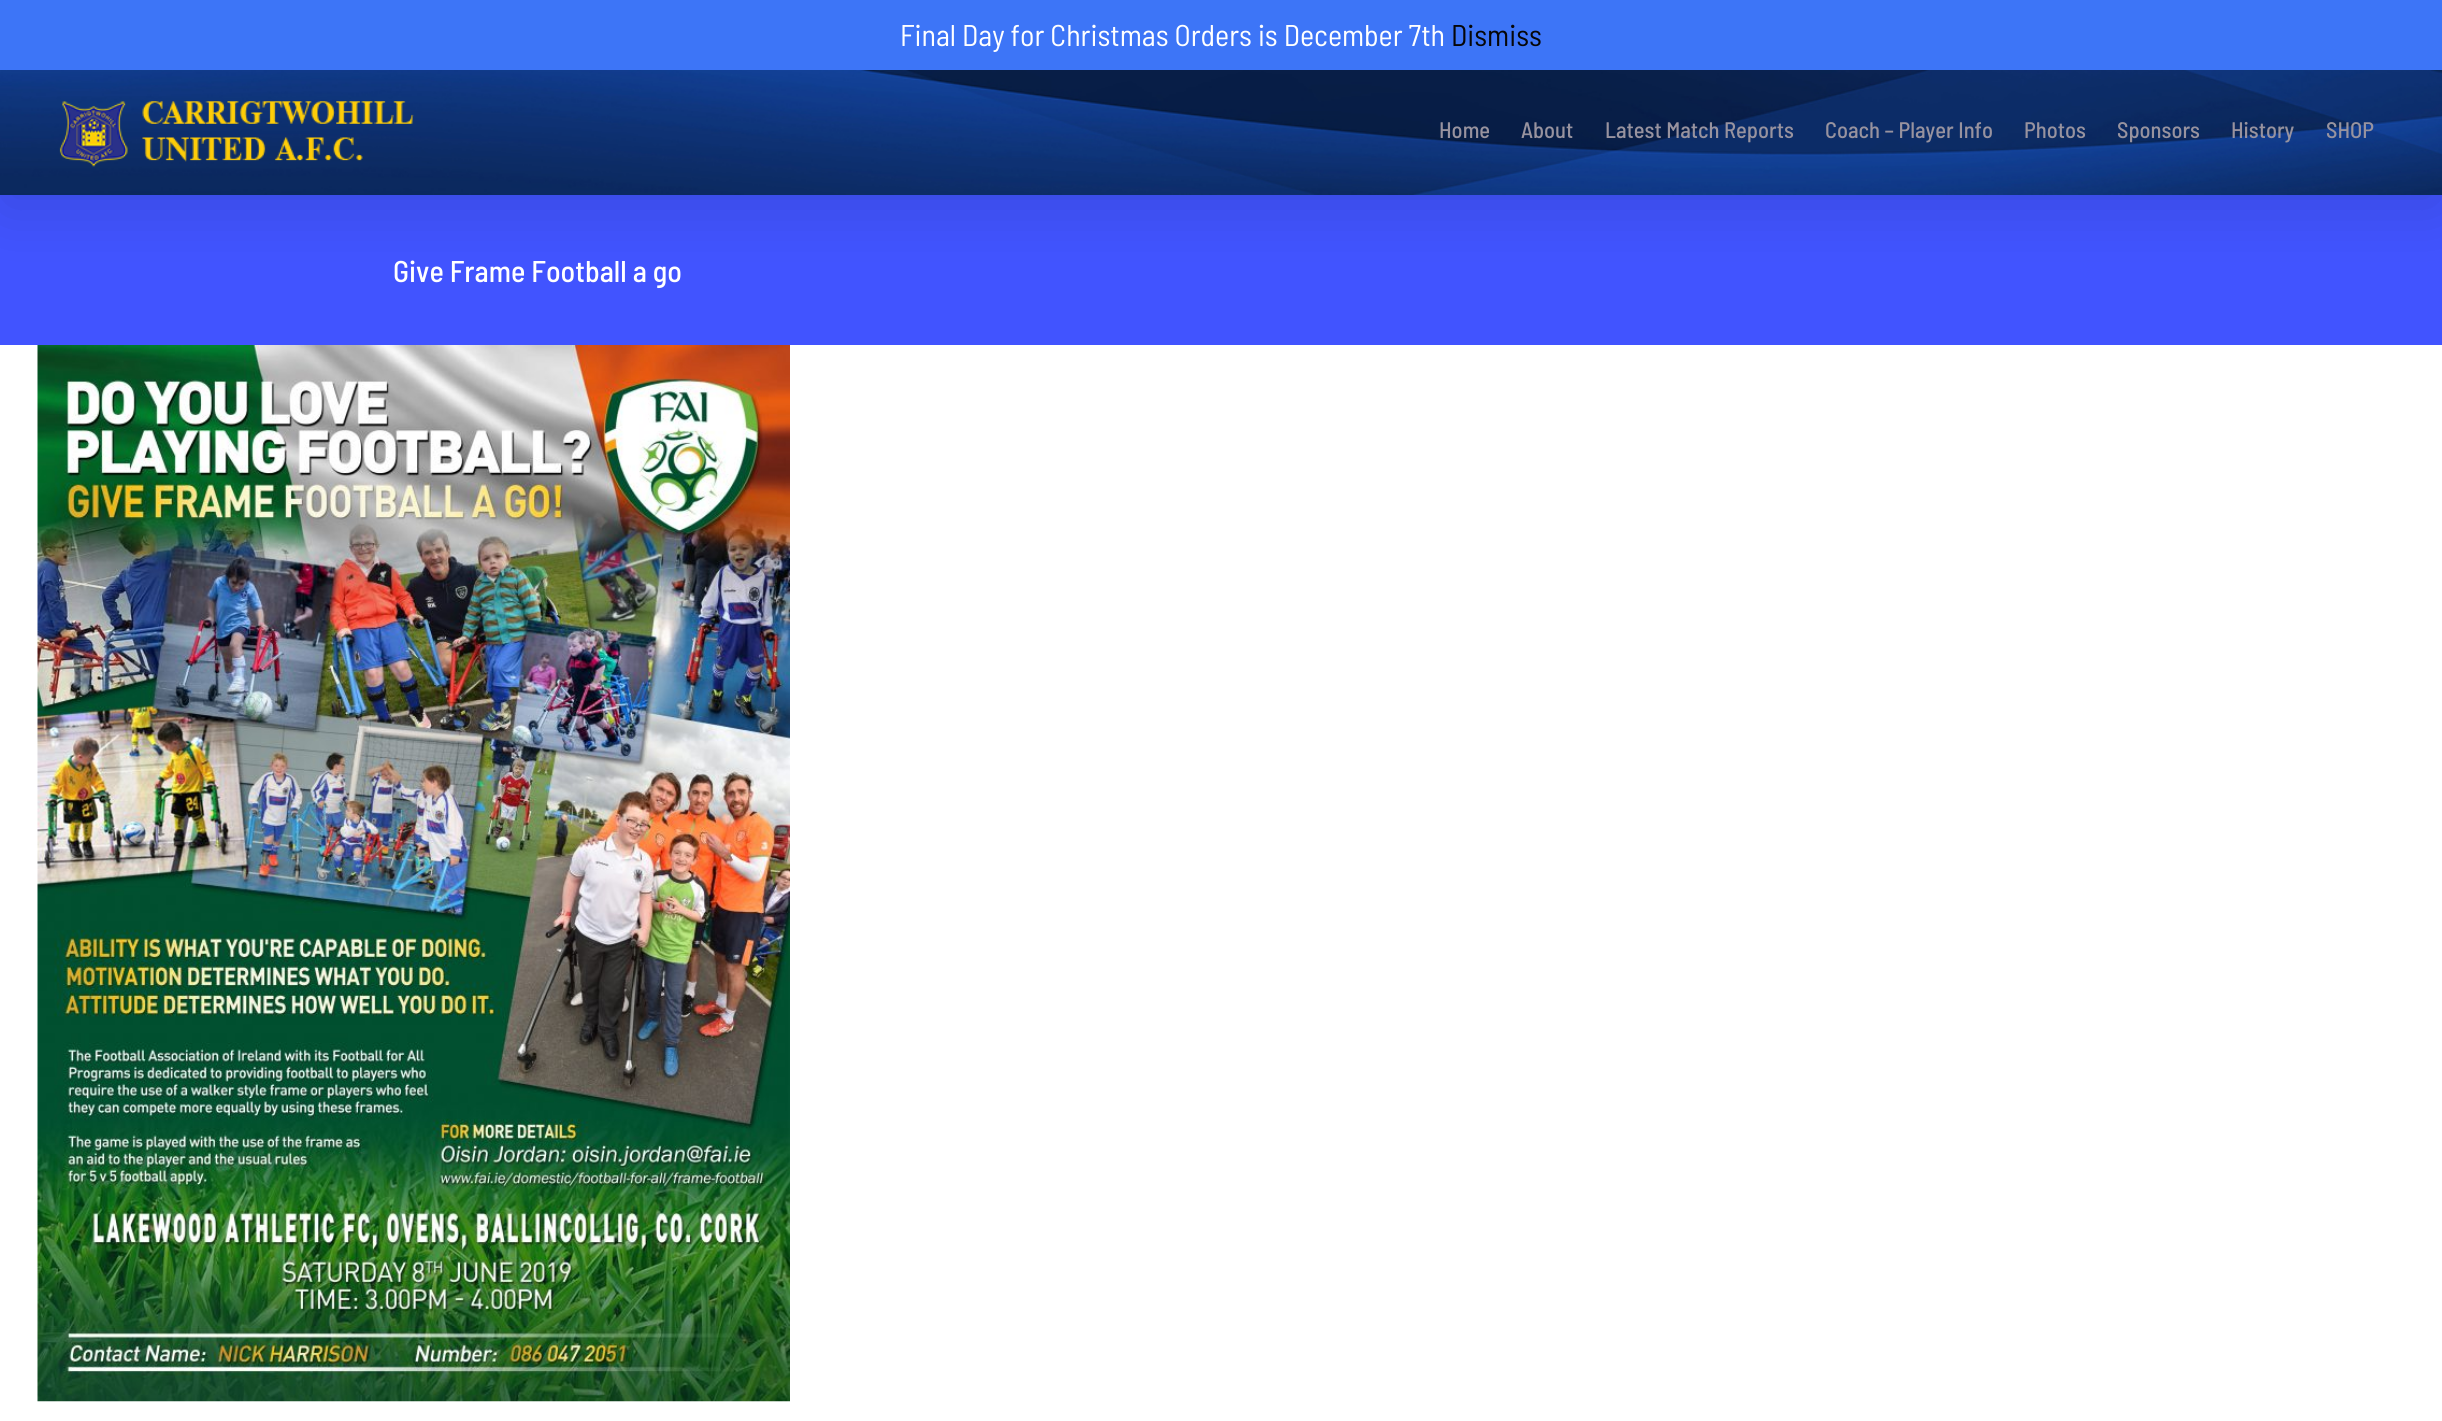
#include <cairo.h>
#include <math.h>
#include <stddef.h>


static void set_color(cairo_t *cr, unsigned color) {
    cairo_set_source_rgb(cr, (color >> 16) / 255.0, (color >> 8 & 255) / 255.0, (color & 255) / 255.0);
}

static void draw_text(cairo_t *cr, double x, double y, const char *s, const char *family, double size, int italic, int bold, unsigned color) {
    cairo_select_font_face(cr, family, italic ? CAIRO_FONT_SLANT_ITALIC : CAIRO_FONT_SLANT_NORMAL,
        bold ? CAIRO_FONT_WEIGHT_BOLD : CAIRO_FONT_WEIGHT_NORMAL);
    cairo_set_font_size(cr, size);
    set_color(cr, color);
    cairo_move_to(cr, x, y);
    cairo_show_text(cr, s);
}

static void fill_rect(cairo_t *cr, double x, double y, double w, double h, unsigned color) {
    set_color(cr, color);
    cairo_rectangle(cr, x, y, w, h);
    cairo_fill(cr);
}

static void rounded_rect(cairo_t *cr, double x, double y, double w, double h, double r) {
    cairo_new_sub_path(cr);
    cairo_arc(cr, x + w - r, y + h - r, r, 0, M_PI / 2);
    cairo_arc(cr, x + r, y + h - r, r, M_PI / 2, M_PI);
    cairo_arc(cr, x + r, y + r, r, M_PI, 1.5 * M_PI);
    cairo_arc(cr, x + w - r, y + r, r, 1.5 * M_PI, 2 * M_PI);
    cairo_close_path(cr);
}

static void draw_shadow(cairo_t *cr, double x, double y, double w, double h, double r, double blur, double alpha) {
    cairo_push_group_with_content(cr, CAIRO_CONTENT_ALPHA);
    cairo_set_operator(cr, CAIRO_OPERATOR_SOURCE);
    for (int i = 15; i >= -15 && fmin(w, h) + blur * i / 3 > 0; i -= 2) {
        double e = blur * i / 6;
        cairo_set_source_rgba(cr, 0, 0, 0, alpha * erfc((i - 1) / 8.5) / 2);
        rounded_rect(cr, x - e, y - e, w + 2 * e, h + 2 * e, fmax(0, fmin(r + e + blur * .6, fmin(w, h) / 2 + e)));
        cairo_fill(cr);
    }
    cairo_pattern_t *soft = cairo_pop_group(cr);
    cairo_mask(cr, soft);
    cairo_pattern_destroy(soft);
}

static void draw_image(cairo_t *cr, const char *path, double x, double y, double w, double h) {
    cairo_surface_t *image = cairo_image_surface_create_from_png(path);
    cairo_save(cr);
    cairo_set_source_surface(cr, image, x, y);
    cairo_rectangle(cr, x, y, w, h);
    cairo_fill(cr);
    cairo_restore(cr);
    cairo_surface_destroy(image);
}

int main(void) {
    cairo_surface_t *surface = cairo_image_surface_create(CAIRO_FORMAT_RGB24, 2442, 1421);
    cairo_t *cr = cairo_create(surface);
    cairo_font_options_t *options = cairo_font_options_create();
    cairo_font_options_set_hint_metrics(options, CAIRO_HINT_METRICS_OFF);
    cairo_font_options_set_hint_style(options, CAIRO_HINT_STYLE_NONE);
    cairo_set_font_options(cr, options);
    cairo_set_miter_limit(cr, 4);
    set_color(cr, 0xFFFFFF);
    cairo_paint(cr);
    fill_rect(cr, 0, 195, 2442, 150, 0x4154FF);
    set_color(cr, 0x000000);
    draw_shadow(cr, 3, 85, 2437, 120, 0, 31, 0.14);
    fill_rect(cr, 0, 0, 2442, 70, 0x3D75F7);
    draw_text(cr, 900, 46, "Final Day for Christmas Orders is December 7th", "Barlow Semi Condensed", 30, 0, 0, 0xFFFFFF);
    draw_text(cr, 1451, 46, "Dismiss", "Barlow Semi Condensed", 30, 0, 0, 0x060607);
    draw_image(cr, "assets/img1.png", 0, 70, 2442, 125);
    draw_image(cr, "assets/img2.png", 59, 101, 355, 66);
    draw_text(cr, 1439, 138, "Home", "Barlow Semi Condensed Medium", 22.5, 0, 0, 0x98939F);
    draw_text(cr, 1521, 138, "About", "Barlow Semi Condensed Medium", 22.5, 0, 0, 0x98939F);
    draw_text(cr, 1605, 138, "Latest Match Reports", "Barlow Semi Condensed Medium", 22.5, 0, 0, 0x98939F);
    draw_text(cr, 1825, 138, "Coach – Player Info", "Barlow Semi Condensed Medium", 22.5, 0, 0, 0x98939F);
    draw_text(cr, 2024, 138, "Photos", "Barlow Semi Condensed Medium", 22.5, 0, 0, 0x98939F);
    draw_text(cr, 2117, 138, "Sponsors", "Barlow Semi Condensed Medium", 22.5, 0, 0, 0x98939F);
    draw_text(cr, 2231, 138, "History", "Barlow Semi Condensed Medium", 22.5, 0, 0, 0x98939F);
    draw_text(cr, 2326, 138, "SHOP", "Barlow Semi Condensed Medium", 22.5, 0, 0, 0x98939F);
    draw_text(cr, 393, 282, "Give Frame Football a go", "Barlow Semi Condensed Medium", 30, 0, 0, 0xFFFFFF);
    draw_image(cr, "assets/img3.png", 37, 345, 753, 1057);
    cairo_surface_write_to_png(surface, "output.png");
    cairo_font_options_destroy(options);
    cairo_destroy(cr);
    cairo_surface_destroy(surface);
    return 0;
}
